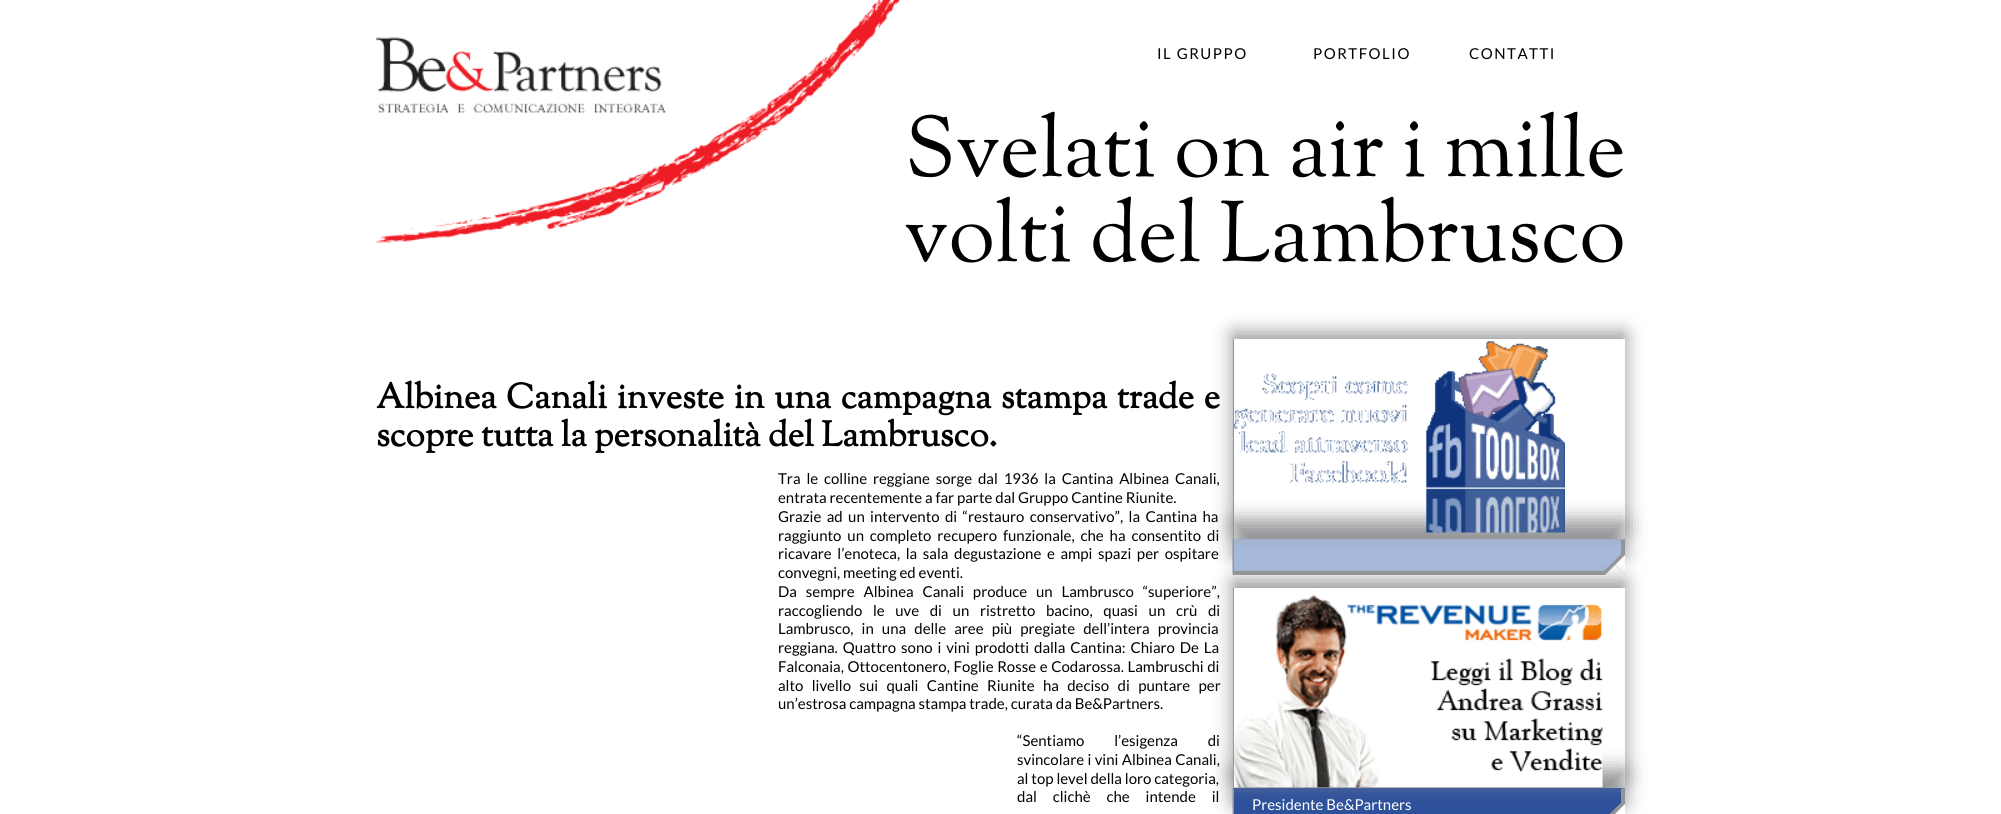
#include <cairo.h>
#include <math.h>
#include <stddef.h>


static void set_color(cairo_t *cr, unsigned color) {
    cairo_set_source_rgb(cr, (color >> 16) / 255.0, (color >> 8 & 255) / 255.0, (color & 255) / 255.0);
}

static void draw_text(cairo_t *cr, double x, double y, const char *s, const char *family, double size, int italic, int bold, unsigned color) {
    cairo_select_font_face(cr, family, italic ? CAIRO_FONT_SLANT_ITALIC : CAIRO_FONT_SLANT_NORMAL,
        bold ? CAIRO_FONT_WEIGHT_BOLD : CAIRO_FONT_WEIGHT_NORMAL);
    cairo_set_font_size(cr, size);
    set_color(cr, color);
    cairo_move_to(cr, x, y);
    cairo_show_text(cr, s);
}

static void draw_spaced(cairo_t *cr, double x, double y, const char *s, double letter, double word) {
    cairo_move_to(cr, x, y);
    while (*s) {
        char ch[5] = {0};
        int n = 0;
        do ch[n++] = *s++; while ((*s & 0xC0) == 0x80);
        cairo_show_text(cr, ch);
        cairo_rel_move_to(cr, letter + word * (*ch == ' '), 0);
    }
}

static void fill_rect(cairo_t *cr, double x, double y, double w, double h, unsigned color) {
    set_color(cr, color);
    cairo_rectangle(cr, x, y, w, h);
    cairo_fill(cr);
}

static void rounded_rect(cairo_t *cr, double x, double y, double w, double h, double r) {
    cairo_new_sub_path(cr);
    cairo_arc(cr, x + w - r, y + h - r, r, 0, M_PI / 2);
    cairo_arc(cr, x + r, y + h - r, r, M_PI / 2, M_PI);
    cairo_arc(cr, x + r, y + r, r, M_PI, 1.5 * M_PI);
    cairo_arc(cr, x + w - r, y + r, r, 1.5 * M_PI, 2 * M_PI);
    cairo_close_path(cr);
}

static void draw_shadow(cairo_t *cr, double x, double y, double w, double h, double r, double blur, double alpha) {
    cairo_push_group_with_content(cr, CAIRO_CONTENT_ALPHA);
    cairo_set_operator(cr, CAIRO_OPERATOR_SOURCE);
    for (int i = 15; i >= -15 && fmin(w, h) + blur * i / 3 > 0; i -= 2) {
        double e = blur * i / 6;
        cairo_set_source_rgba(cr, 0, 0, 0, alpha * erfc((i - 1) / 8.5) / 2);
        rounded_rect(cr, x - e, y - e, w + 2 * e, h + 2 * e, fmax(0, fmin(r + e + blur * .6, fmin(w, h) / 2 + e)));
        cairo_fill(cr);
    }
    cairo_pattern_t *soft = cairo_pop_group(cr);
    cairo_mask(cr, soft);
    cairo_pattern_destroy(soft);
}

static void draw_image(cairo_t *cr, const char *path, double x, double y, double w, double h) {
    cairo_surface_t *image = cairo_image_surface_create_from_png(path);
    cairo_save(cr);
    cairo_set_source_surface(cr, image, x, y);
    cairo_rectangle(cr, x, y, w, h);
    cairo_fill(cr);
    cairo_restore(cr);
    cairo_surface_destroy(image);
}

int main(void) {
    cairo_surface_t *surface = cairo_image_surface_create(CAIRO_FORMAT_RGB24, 2001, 814);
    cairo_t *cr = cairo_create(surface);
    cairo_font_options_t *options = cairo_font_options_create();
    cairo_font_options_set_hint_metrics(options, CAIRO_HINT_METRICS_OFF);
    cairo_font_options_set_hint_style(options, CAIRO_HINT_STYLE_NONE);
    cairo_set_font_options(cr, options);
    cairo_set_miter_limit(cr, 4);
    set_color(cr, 0xFFFFFF);
    cairo_paint(cr);
    draw_image(cr, "assets/img1.png", 376, 0, 525, 243);
    draw_image(cr, "assets/img2.png", 376, 37, 290, 76);
    cairo_select_font_face(cr, "Lato", CAIRO_FONT_SLANT_NORMAL, CAIRO_FONT_WEIGHT_NORMAL);
    cairo_set_font_size(cr, 15);
    set_color(cr, 0x000000);
    draw_spaced(cr, 1157, 59, "IL GRUPPO", 1.5, 0);
    draw_spaced(cr, 1313, 59, "PORTFOLIO", 1.5, 0);
    draw_spaced(cr, 1469, 59, "CONTATTI", 1.5, 0);
    draw_text(cr, 905, 176, "Svelati on air i mille", "OFL Sorts Mill Goudy TT Medium", 85, 0, 0, 0x000000);
    draw_text(cr, 904, 261, "volti del Lambrusco", "OFL Sorts Mill Goudy TT Medium", 85, 0, 0, 0x000000);
    cairo_select_font_face(cr, "OFL Sorts Mill Goudy TT", CAIRO_FONT_SLANT_NORMAL, CAIRO_FONT_WEIGHT_BOLD);
    cairo_set_font_size(cr, 35);
    draw_spaced(cr, 376, 408, "Albinea Canali investe in una campagna stampa trade e", 0, 2.25);
    draw_text(cr, 376, 446, "scopre tutta la personalità del Lambrusco.", "OFL Sorts Mill Goudy TT", 35, 0, 1, 0x000000);
    cairo_select_font_face(cr, "Lato", CAIRO_FONT_SLANT_NORMAL, CAIRO_FONT_WEIGHT_NORMAL);
    cairo_set_font_size(cr, 15);
    draw_spaced(cr, 778, 484, "Tra le colline reggiane sorge dal 1936 la Cantina Albinea Canali,", 0, 3);
    draw_text(cr, 778, 503, "entrata recentemente a far parte dal Gruppo Cantine Riunite.", "Lato", 15, 0, 0, 0x000000);
    draw_spaced(cr, 778, 522, "Grazie ad un intervento di “restauro conservativo”, la Cantina ha", 0, 2.5);
    draw_spaced(cr, 778, 541, "raggiunto un completo recupero funzionale, che ha consentito di", 0, 3);
    draw_spaced(cr, 778, 559, "ricavare l’enoteca, la sala degustazione e ampi spazi per ospitare", 0, 2.75);
    draw_text(cr, 778, 578, "convegni, meeting ed eventi.", "Lato", 15, 0, 0, 0x000000);
    draw_spaced(cr, 778, 597, "Da sempre Albinea Canali produce un Lambrusco “superiore”,", 0, 6);
    draw_spaced(cr, 778, 616, "raccogliendo le uve di un ristretto bacino, quasi un crù di", 0, 7.75);
    draw_spaced(cr, 778, 634, "Lambrusco, in una delle aree più pregiate dell’intera provincia", 0, 5.25);
    draw_spaced(cr, 778, 653, "reggiana. Quattro sono i vini prodotti dalla Cantina: Chiaro De La", 0, 2);
    draw_spaced(cr, 778, 672, "Falconaia, Ottocentonero, Foglie Rosse e Codarossa. Lambruschi di", 0, 0.75);
    draw_spaced(cr, 778, 691, "alto livello sui quali Cantine Riunite ha deciso di puntare per", 0, 5.5);
    draw_text(cr, 778, 709, "un’estrosa campagna stampa trade, curata da Be&Partners.", "Lato", 15, 0, 0, 0x000000);
    draw_spaced(cr, 1017, 746, "“Sentiamo l’esigenza di", 0, 27);
    draw_spaced(cr, 1017, 765, "svincolare i vini Albinea Canali,", 0, 0.5);
    draw_text(cr, 1017, 784, "al top level della loro categoria,", "Lato", 15, 0, 0, 0x000000);
    draw_spaced(cr, 1017, 802, "dal clichè che intende il", 0, 13);
    set_color(cr, 0x939598);
    draw_shadow(cr, 1233, 520, 392, 36, 0, 9.5, 1);
    fill_rect(cr, 1233, 539, 392, 32, 0xA7BADC);
    set_color(cr, 0x939598);
    cairo_new_path(cr);
    cairo_move_to(cr, 1625, 539);
    cairo_line_to(cr, 1625, 575);
    cairo_line_to(cr, 1621, 571);
    cairo_line_to(cr, 1621, 540);
    cairo_close_path(cr);
    cairo_fill(cr);
    fill_rect(cr, 1233, 571, 392, 4, 0x939598);
    cairo_new_path(cr);
    cairo_move_to(cr, 1232.5, 575);
    cairo_line_to(cr, 1232.5, 539);
    cairo_line_to(cr, 1234, 540);
    cairo_line_to(cr, 1234, 571);
    cairo_close_path(cr);
    cairo_fill(cr);
    cairo_save(cr);
    cairo_set_fill_rule(cr, CAIRO_FILL_RULE_EVEN_ODD);
    cairo_new_path(cr);
    cairo_move_to(cr, 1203, 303);
    cairo_line_to(cr, 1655, 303);
    cairo_line_to(cr, 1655, 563);
    cairo_line_to(cr, 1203, 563);
    cairo_close_path(cr);
    cairo_move_to(cr, 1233, 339);
    cairo_line_to(cr, 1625, 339);
    cairo_line_to(cr, 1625, 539);
    cairo_line_to(cr, 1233, 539);
    cairo_close_path(cr);
    cairo_clip(cr);
    set_color(cr, 0x939598);
    draw_shadow(cr, 1233, 333, 392, 200, 0, 9.5, 1);
    cairo_restore(cr);
    fill_rect(cr, 1233, 339, 1, 200, 0x939598);
    draw_image(cr, "assets/img3.png", 1233, 341, 332, 192);
    cairo_new_path(cr);
    cairo_move_to(cr, 1625, 550);
    cairo_line_to(cr, 1625, 575);
    cairo_line_to(cr, 1612.5, 562.5);
    cairo_close_path(cr);
    cairo_fill(cr);
    cairo_new_path(cr);
    cairo_move_to(cr, 1625, 575);
    cairo_line_to(cr, 1600, 575);
    cairo_line_to(cr, 1612.5, 562.5);
    cairo_close_path(cr);
    cairo_fill(cr);
    set_color(cr, 0xFFFFFF);
    cairo_new_path(cr);
    cairo_move_to(cr, 1625, 555);
    cairo_line_to(cr, 1625, 575);
    cairo_line_to(cr, 1615, 565);
    cairo_close_path(cr);
    cairo_fill(cr);
    cairo_new_path(cr);
    cairo_move_to(cr, 1625, 575);
    cairo_line_to(cr, 1605, 575);
    cairo_line_to(cr, 1615, 565);
    cairo_close_path(cr);
    cairo_fill(cr);
    set_color(cr, 0x939598);
    draw_shadow(cr, 1233, 769, 392, 36, 0, 9.5, 1);
    fill_rect(cr, 1233, 788, 391, 26, 0x2E519B);
    set_color(cr, 0x939598);
    cairo_new_path(cr);
    cairo_move_to(cr, 1625, 787.5);
    cairo_line_to(cr, 1625, 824);
    cairo_line_to(cr, 1621, 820);
    cairo_line_to(cr, 1621, 789);
    cairo_close_path(cr);
    cairo_fill(cr);
    cairo_new_path(cr);
    cairo_move_to(cr, 1232.5, 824);
    cairo_line_to(cr, 1232.5, 787.5);
    cairo_line_to(cr, 1234, 789);
    cairo_line_to(cr, 1234, 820);
    cairo_close_path(cr);
    cairo_fill(cr);
    cairo_save(cr);
    cairo_set_fill_rule(cr, CAIRO_FILL_RULE_EVEN_ODD);
    cairo_new_path(cr);
    cairo_move_to(cr, 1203, 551);
    cairo_line_to(cr, 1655, 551);
    cairo_line_to(cr, 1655, 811);
    cairo_line_to(cr, 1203, 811);
    cairo_close_path(cr);
    cairo_move_to(cr, 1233, 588);
    cairo_line_to(cr, 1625, 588);
    cairo_line_to(cr, 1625, 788);
    cairo_line_to(cr, 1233, 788);
    cairo_close_path(cr);
    cairo_clip(cr);
    set_color(cr, 0x939598);
    draw_shadow(cr, 1233, 581, 392, 200, 0, 9.5, 1);
    cairo_restore(cr);
    fill_rect(cr, 1233, 588, 1, 200, 0x939598);
    draw_image(cr, "assets/img4.png", 1233, 589, 370, 199);
    draw_text(cr, 1252, 810, "Presidente Be&Partners", "Lato", 15, 0, 0, 0xFFFFFF);
    set_color(cr, 0x939598);
    cairo_new_path(cr);
    cairo_move_to(cr, 1625, 799);
    cairo_line_to(cr, 1625, 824);
    cairo_line_to(cr, 1612.5, 811);
    cairo_close_path(cr);
    cairo_fill(cr);
    cairo_new_path(cr);
    cairo_move_to(cr, 1625, 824);
    cairo_line_to(cr, 1600, 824);
    cairo_line_to(cr, 1612.5, 811);
    cairo_close_path(cr);
    cairo_fill(cr);
    set_color(cr, 0xFFFFFF);
    cairo_new_path(cr);
    cairo_move_to(cr, 1625, 804);
    cairo_line_to(cr, 1625, 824);
    cairo_line_to(cr, 1615, 814);
    cairo_close_path(cr);
    cairo_fill(cr);
    cairo_surface_write_to_png(surface, "output.png");
    cairo_font_options_destroy(options);
    cairo_destroy(cr);
    cairo_surface_destroy(surface);
    return 0;
}
